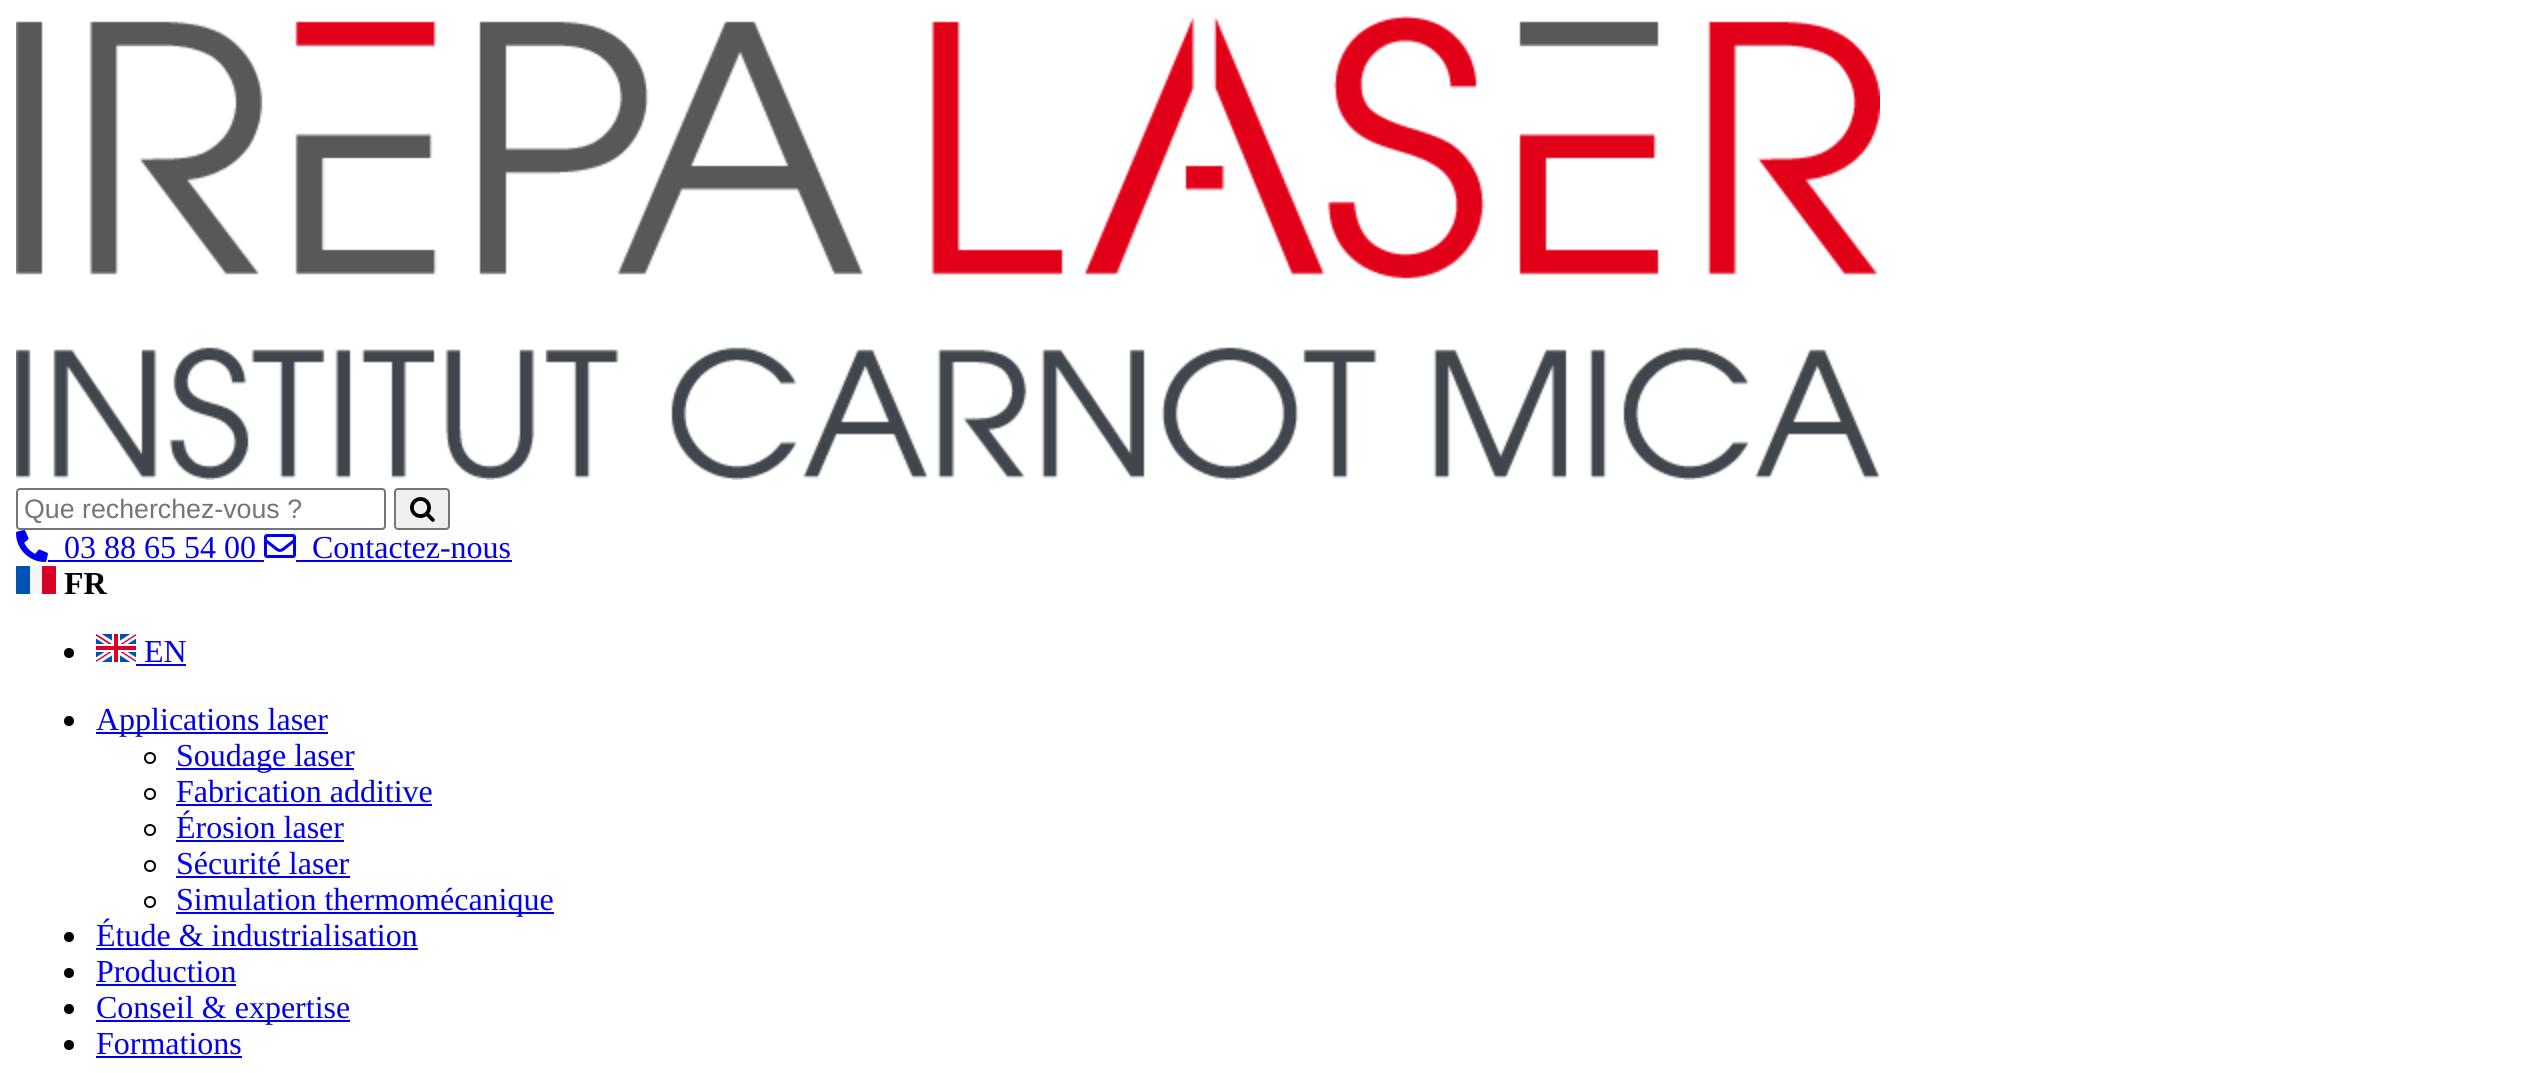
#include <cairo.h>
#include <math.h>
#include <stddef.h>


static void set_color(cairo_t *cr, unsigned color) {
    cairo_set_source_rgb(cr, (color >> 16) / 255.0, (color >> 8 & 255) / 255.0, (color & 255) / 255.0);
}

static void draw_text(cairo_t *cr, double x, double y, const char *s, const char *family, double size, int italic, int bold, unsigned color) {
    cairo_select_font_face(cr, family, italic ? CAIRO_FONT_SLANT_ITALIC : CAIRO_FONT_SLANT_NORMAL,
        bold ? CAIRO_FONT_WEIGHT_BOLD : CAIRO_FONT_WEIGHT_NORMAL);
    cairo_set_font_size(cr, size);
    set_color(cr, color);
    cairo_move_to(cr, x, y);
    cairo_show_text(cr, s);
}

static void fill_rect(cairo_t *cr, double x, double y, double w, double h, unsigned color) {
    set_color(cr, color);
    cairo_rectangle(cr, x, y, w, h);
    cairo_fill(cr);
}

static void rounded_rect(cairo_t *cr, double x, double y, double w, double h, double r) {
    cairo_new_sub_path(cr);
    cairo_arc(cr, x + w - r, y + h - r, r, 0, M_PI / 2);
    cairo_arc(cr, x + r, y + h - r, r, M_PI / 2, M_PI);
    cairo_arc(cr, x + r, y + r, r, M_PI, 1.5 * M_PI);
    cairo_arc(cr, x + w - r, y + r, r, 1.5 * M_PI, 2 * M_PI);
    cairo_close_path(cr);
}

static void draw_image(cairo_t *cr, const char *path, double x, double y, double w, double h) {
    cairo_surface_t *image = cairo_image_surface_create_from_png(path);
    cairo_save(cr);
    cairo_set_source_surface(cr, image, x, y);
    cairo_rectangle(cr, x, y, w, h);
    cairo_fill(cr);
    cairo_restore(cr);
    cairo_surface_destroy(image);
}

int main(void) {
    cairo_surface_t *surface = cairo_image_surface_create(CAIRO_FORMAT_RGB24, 2533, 1073);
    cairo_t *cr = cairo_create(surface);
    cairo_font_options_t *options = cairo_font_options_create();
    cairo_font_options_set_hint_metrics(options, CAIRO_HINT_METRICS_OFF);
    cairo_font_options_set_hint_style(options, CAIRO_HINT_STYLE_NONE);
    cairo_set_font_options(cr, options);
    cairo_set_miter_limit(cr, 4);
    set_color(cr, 0xFFFFFF);
    cairo_paint(cr);
    draw_image(cr, "assets/img1.png", 16, 16, 1864, 464);
    rounded_rect(cr, 17, 489, 368, 40, 3);
    set_color(cr, 0x767676);
    cairo_stroke(cr);
    draw_text(cr, 24, 518, "Que recherchez-vous ?", "Liberation Sans", 26.75, 0, 0, 0x757575);
    set_color(cr, 0xEFEFEF);
    rounded_rect(cr, 395, 489, 54, 40, 3);
    cairo_fill_preserve(cr);
    set_color(cr, 0x767676);
    cairo_stroke(cr);
    draw_image(cr, "assets/img2.png", 410, 497, 25, 25);
    draw_image(cr, "assets/img3.png", 16, 530, 32, 32);
    draw_text(cr, 64, 558, "03 88 65 54 00", "Liberation Serif", 32, 0, 0, 0x0000EE);
    fill_rect(cr, 48, 560, 216, 2, 0x0000EE);
    draw_image(cr, "assets/img4.png", 264, 534, 32, 24);
    draw_text(cr, 312, 558, "Contactez-nous", "Liberation Serif", 32, 0, 0, 0x0000EE);
    fill_rect(cr, 296, 560, 216, 2, 0x0000EE);
    draw_image(cr, "assets/img5.png", 16, 566, 40, 28);
    draw_text(cr, 64, 594, "FR", "Liberation Serif", 32, 0, 1, 0x000000);
    cairo_new_path(cr);
    cairo_arc(cr, 69, 653, 5, 0, 2 * M_PI);
    cairo_fill(cr);
    draw_image(cr, "assets/img6.png", 96, 634, 40, 28);
    draw_text(cr, 144, 662, "EN", "Liberation Serif", 32, 0, 0, 0x0000EE);
    fill_rect(cr, 136, 664, 50, 2, 0x0000EE);
    set_color(cr, 0x000000);
    cairo_new_path(cr);
    cairo_arc(cr, 69, 721, 5, 0, 2 * M_PI);
    cairo_fill(cr);
    fill_rect(cr, 96, 732, 232, 2, 0x0000EE);
    draw_text(cr, 96, 730, "Applications laser", "Liberation Serif", 32, 0, 0, 0x0000EE);
    cairo_new_path(cr);
    cairo_arc(cr, 150, 758, 5, 0, 2 * M_PI);
    set_color(cr, 0x000000);
    cairo_stroke(cr);
    fill_rect(cr, 176, 768, 178, 2, 0x0000EE);
    draw_text(cr, 176, 766, "Soudage laser", "Liberation Serif", 32, 0, 0, 0x0000EE);
    cairo_new_path(cr);
    cairo_arc(cr, 150, 794, 5, 0, 2 * M_PI);
    set_color(cr, 0x000000);
    cairo_stroke(cr);
    draw_text(cr, 176, 802, "Fabrication additive", "Liberation Serif", 32, 0, 0, 0x0000EE);
    fill_rect(cr, 176, 804, 256, 2, 0x0000EE);
    cairo_new_path(cr);
    cairo_arc(cr, 150, 830, 5, 0, 2 * M_PI);
    set_color(cr, 0x000000);
    cairo_stroke(cr);
    draw_text(cr, 176, 838, "Érosion laser", "Liberation Serif", 32, 0, 0, 0x0000EE);
    fill_rect(cr, 176, 840, 168, 2, 0x0000EE);
    cairo_new_path(cr);
    cairo_arc(cr, 150, 866, 5, 0, 2 * M_PI);
    set_color(cr, 0x000000);
    cairo_stroke(cr);
    draw_text(cr, 176, 874, "Sécurité laser", "Liberation Serif", 32, 0, 0, 0x0000EE);
    fill_rect(cr, 176, 876, 174, 2, 0x0000EE);
    cairo_new_path(cr);
    cairo_arc(cr, 150, 902, 5, 0, 2 * M_PI);
    set_color(cr, 0x000000);
    cairo_stroke(cr);
    fill_rect(cr, 176, 912, 378, 2, 0x0000EE);
    draw_text(cr, 176, 910, "Simulation thermomécanique", "Liberation Serif", 32, 0, 0, 0x0000EE);
    set_color(cr, 0x000000);
    cairo_new_path(cr);
    cairo_arc(cr, 69, 937, 5, 0, 2 * M_PI);
    cairo_fill(cr);
    draw_text(cr, 96, 946, "Étude & industrialisation", "Liberation Serif", 32, 0, 0, 0x0000EE);
    fill_rect(cr, 96, 948, 322, 2, 0x0000EE);
    set_color(cr, 0x000000);
    cairo_new_path(cr);
    cairo_arc(cr, 69, 973, 5, 0, 2 * M_PI);
    cairo_fill(cr);
    draw_text(cr, 96, 982, "Production", "Liberation Serif", 32, 0, 0, 0x0000EE);
    fill_rect(cr, 96, 984, 140, 2, 0x0000EE);
    set_color(cr, 0x000000);
    cairo_new_path(cr);
    cairo_arc(cr, 69, 1009, 5, 0, 2 * M_PI);
    cairo_fill(cr);
    fill_rect(cr, 96, 1020, 254, 2, 0x0000EE);
    draw_text(cr, 96, 1018, "Conseil & expertise", "Liberation Serif", 32, 0, 0, 0x0000EE);
    set_color(cr, 0x000000);
    cairo_new_path(cr);
    cairo_arc(cr, 69, 1045, 5, 0, 2 * M_PI);
    cairo_fill(cr);
    draw_text(cr, 96, 1054, "Formations", "Liberation Serif", 32, 0, 0, 0x0000EE);
    fill_rect(cr, 96, 1056, 146, 2, 0x0000EE);
    cairo_surface_write_to_png(surface, "output.png");
    cairo_font_options_destroy(options);
    cairo_destroy(cr);
    cairo_surface_destroy(surface);
    return 0;
}
